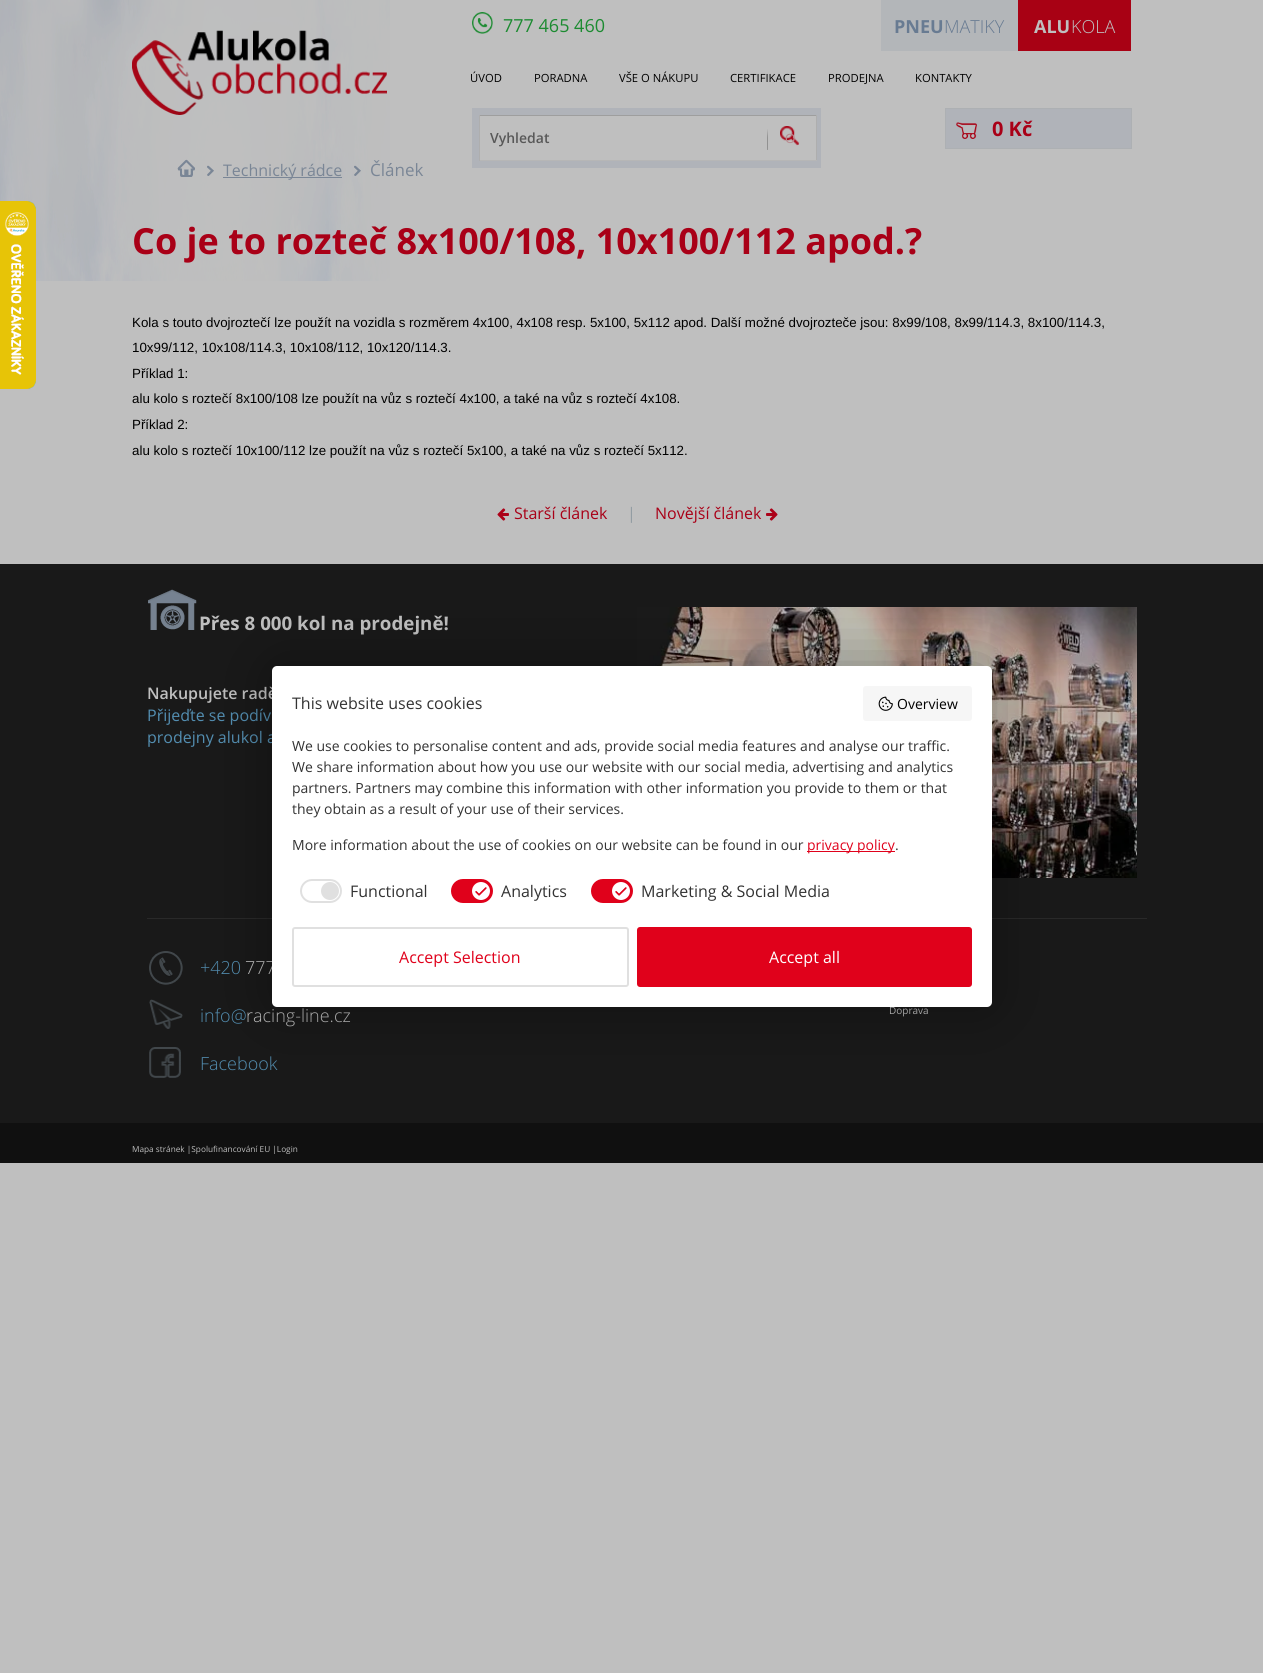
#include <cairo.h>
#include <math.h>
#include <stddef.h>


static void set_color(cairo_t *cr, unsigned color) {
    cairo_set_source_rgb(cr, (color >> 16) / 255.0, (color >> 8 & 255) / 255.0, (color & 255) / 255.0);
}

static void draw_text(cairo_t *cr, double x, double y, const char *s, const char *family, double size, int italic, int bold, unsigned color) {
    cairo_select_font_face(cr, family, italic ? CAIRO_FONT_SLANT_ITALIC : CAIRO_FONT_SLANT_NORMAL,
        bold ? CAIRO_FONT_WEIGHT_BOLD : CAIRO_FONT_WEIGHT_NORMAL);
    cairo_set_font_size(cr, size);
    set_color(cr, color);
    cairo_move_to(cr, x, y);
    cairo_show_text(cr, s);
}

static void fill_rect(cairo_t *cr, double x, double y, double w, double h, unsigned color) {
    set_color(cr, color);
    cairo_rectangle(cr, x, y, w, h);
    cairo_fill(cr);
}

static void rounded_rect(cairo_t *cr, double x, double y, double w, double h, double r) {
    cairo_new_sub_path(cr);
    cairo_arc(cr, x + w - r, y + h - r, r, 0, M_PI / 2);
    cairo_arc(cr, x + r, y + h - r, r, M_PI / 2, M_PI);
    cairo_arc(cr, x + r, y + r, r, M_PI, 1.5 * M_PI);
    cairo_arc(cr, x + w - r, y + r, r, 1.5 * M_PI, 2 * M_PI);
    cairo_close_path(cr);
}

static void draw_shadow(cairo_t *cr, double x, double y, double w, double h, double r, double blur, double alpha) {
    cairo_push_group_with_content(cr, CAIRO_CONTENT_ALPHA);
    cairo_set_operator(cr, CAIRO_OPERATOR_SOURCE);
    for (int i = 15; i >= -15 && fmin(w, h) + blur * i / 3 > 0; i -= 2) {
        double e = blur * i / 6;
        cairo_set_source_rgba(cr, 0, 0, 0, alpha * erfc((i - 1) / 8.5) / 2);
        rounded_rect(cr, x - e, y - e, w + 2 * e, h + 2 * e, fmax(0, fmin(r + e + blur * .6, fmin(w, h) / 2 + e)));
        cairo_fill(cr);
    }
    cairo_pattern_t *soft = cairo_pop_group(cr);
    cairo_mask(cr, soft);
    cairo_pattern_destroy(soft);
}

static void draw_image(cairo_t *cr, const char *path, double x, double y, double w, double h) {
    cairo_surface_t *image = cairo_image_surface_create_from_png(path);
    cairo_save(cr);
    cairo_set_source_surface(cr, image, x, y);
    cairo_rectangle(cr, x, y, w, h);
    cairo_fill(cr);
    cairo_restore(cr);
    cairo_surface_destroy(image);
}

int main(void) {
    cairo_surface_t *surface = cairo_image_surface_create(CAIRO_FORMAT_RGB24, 1263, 1673);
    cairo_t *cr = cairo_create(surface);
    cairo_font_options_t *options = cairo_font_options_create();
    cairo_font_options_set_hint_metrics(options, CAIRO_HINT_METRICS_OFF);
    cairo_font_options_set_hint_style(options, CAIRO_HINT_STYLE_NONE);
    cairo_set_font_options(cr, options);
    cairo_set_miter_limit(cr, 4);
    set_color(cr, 0xBFBFBF);
    cairo_paint(cr);
    draw_image(cr, "assets/img1.png", 0, 0, 390, 281);
    draw_image(cr, "assets/img2.png", 132, 30, 255, 85);
    draw_image(cr, "assets/img3.png", 472, 12, 21, 22);
    draw_text(cr, 503, 32, "777 465 460", "Open Sans", 18, 0, 0, 0x1C8B31);
    fill_rect(cr, 881, 0, 137, 51, 0xB3B6B9);
    draw_text(cr, 894, 33, "PNEU", "Open Sans", 18, 0, 1, 0x687B92);
    draw_text(cr, 944, 33, "MATIKY", "Open Sans Light", 18, 0, 0, 0x687B92);
    fill_rect(cr, 1018, 0, 113, 51, 0xA80114);
    draw_text(cr, 1034, 33, "ALU", "Open Sans", 18, 0, 1, 0xBFBFBF);
    draw_text(cr, 1071, 33, "KOLA", "Open Sans Light", 18, 0, 0, 0xBFBFBF);
    draw_text(cr, 470, 82, "ÚVOD", "Open Sans", 11.25, 0, 0, 0x000000);
    draw_text(cr, 534, 82, "PORADNA", "Open Sans", 11.25, 0, 0, 0x000000);
    draw_text(cr, 619, 82, "VŠE O NÁKUPU", "Open Sans", 11.25, 0, 0, 0x000000);
    draw_text(cr, 730, 82, "CERTIFIKACE", "Open Sans", 11.25, 0, 0, 0x000000);
    draw_text(cr, 828, 82, "PRODEJNA", "Open Sans", 11.25, 0, 0, 0x000000);
    draw_text(cr, 915, 82, "KONTAKTY", "Open Sans", 11.25, 0, 0, 0x000000);
    set_color(cr, 0xB0B3B9);
    cairo_rectangle(cr, 945.5, 108.5, 186, 40);
    cairo_fill_preserve(cr);
    set_color(cr, 0xADB0B3);
    cairo_set_line_width(cr, 1);
    cairo_stroke(cr);
    draw_image(cr, "assets/img4.png", 956, 122, 21, 17);
    draw_text(cr, 992, 136, "0 Kč", "Open Sans", 20, 0, 1, 0xA90017);
    cairo_rectangle(cr, 475.5, 111.5, 342, 53);
    set_color(cr, 0xB0B3B9);
    cairo_set_line_width(cr, 7);
    cairo_stroke(cr);
    draw_image(cr, "assets/img5.png", 767, 129, 1, 21);
    fill_rect(cr, 814, 116, 2, 44, 0xBFBFBF);
    fill_rect(cr, 479, 115, 338, 1, 0x9E9E9E);
    fill_rect(cr, 816, 115, 1, 46, 0xAEAEAE);
    fill_rect(cr, 479, 160, 338, 1, 0xB6B6B6);
    fill_rect(cr, 479, 115, 1, 46, 0xAEAEAE);
    draw_text(cr, 490, 143, "Vyhledat", "Open Sans SemiBold", 14, 0, 0, 0x585858);
    draw_image(cr, "assets/img6.png", 780, 126, 20, 20);
    draw_text(cr, 785, 143, "O", "Liberation Sans", 13.33, 0, 0, 0xB98C91);
    draw_image(cr, "assets/img7.png", 0, 201, 36, 188);
    draw_image(cr, "assets/img8.png", 177, 159, 18, 18);
    draw_image(cr, "assets/img9.png", 207, 165, 7, 11);
    fill_rect(cr, 223, 177, 119, 1, 0x7A8696);
    draw_text(cr, 223, 176, "Technický rádce", "Open Sans", 16, 0, 0, 0x7A8696);
    draw_image(cr, "assets/img10.png", 354, 165, 7, 11);
    draw_text(cr, 370, 176, "Článek", "Open Sans", 17, 0, 0, 0x7A8696);
    draw_text(cr, 132, 254, "Co je to rozteč 8x100/108, 10x100/112 apod.?", "Open Sans", 36, 0, 1, 0xA90017);
    draw_text(cr, 132, 327, "Kola s touto dvojroztečí lze použít na vozidla s rozměrem 4x100, 4x108 resp. 5x100, 5x112 apod. Další možné dvojrozteče jsou: 8x99/108, 8x99/114.3, 8x100/114.3,", "Liberation Sans", 13.33, 0, 0, 0x000000);
    draw_text(cr, 132, 352, "10x99/112, 10x108/114.3, 10x108/112, 10x120/114.3.", "Liberation Sans", 13.33, 0, 0, 0x000000);
    draw_text(cr, 132, 378, "Příklad 1:", "Liberation Sans", 13.33, 0, 0, 0x000000);
    draw_text(cr, 132, 403, "alu kolo s roztečí 8x100/108 lze použít na vůz s roztečí 4x100, a také na vůz s roztečí 4x108.", "Liberation Sans", 13.33, 0, 0, 0x000000);
    draw_text(cr, 132, 429, "Příklad 2:", "Liberation Sans", 13.33, 0, 0, 0x000000);
    draw_text(cr, 132, 455, "alu kolo s roztečí 10x100/112 lze použít na vůz s roztečí 5x100, a také na vůz s roztečí 5x112.", "Liberation Sans", 13.33, 0, 0, 0x000000);
    draw_image(cr, "assets/img11.png", 497, 508, 12, 13);
    draw_text(cr, 514, 519, "Starší článek", "Open Sans", 16, 0, 0, 0xA90017);
    draw_text(cr, 627, 519, "|", "Open Sans", 16, 0, 0, 0x929CA2);
    draw_text(cr, 655, 519, "Novější článek", "Open Sans", 16, 0, 0, 0xA90017);
    draw_image(cr, "assets/img12.png", 766, 508, 12, 13);
    fill_rect(cr, 0, 564, 1263, 559, 0x191919);
    fill_rect(cr, 147, 918, 1000, 1, 0x292929);
    draw_image(cr, "assets/img13.png", 148, 589, 49, 41);
    draw_text(cr, 199, 630, "Přes 8 000 kol na prodejně!", "Open Sans", 18.75, 0, 1, 0xBFBFBF);
    draw_text(cr, 147, 699, "Nakupujete radě", "Open Sans SemiBold", 16, 0, 0, 0xBFBFBF);
    draw_text(cr, 147, 721, "Přijeďte se podív", "Open Sans", 16, 0, 0, 0x538EB1);
    draw_text(cr, 147, 743, "prodejny alukol a", "Open Sans", 16, 0, 0, 0x538EB1);
    draw_image(cr, "assets/img14.png", 637, 607, 500, 271);
    draw_image(cr, "assets/img15.png", 149, 951, 34, 34);
    draw_text(cr, 200, 974, "+420", "Open Sans Light", 18, 0, 0, 0x538EB1);
    draw_text(cr, 245, 974, "777", "Open Sans Light", 18, 0, 0, 0xBFBFBF);
    draw_image(cr, "assets/img16.png", 149, 999, 34, 30);
    draw_text(cr, 200, 1022, "info@", "Open Sans Light", 18, 0, 0, 0x538EB1);
    draw_text(cr, 246, 1022, "racing-line.cz", "Open Sans Light", 18, 0, 0, 0xBFBFBF);
    draw_image(cr, "assets/img17.png", 149, 1047, 32, 31);
    draw_text(cr, 200, 1070, "Facebook", "Open Sans Light", 18, 0, 0, 0x538EB1);
    draw_text(cr, 889, 1014, "Doprava", "Open Sans", 10, 0, 0, 0xBFBFBF);
    fill_rect(cr, 0, 1123, 1263, 40, 0x101010);
    draw_text(cr, 132, 1152, "Mapa stránek |Spolufinancování EU |Login", "Open Sans", 8.25, 0, 0, 0xBFBFBF);
    set_color(cr, 0x000000);
    draw_shadow(cr, 272, 666, 720, 341, 5, 32, 0.33);
    set_color(cr, 0xFFFFFF);
    rounded_rect(cr, 272, 666, 720, 341, 5);
    cairo_fill(cr);
    draw_text(cr, 292, 709, "This website uses cookies", "Open Sans", 16, 0, 0, 0x333333);
    set_color(cr, 0xF6F6F6);
    rounded_rect(cr, 863, 686, 109, 35, 3);
    cairo_fill(cr);
    draw_image(cr, "assets/img18.png", 878, 696, 15, 15);
    draw_text(cr, 897, 709, "Overview", "Open Sans", 14, 0, 0, 0x000000);
    draw_text(cr, 292, 751, "We use cookies to personalise content and ads, provide social media features and analyse our traffic.", "Open Sans", 14, 0, 0, 0x333333);
    draw_text(cr, 292, 772, "We share information about how you use our website with our social media, advertising and analytics", "Open Sans", 14, 0, 0, 0x333333);
    draw_text(cr, 292, 793, "partners. Partners may combine this information with other information you provide to them or that", "Open Sans", 14, 0, 0, 0x333333);
    draw_text(cr, 292, 814, "they obtain as a result of your use of their services.", "Open Sans", 14, 0, 0, 0x333333);
    draw_text(cr, 292, 850, "More information about the use of cookies on our website can be found in our", "Open Sans", 14, 0, 0, 0x333333);
    fill_rect(cr, 807, 851, 88, 1, 0xE0011B);
    draw_text(cr, 807, 850, "privacy policy", "Open Sans", 14, 0, 0, 0xE0011B);
    draw_text(cr, 895, 850, ".", "Open Sans", 14, 0, 0, 0x333333);
    rounded_rect(cr, 301, 880, 40, 22, 11);
    set_color(cr, 0xE0E0E0);
    cairo_set_line_width(cr, 2);
    cairo_stroke(cr);
    cairo_arc(cr, 330, 891, 9, 0, 2 * M_PI);
    cairo_fill(cr);
    draw_text(cr, 350, 897, "Functional", "Open Sans", 16, 0, 0, 0x333333);
    set_color(cr, 0xE0011B);
    rounded_rect(cr, 452, 880, 40, 22, 11);
    cairo_fill_preserve(cr);
    cairo_stroke(cr);
    set_color(cr, 0xFFFFFF);
    cairo_arc(cr, 481, 891, 9, 0, 2 * M_PI);
    cairo_fill(cr);
    draw_image(cr, "assets/img19.png", 475, 887, 12, 9);
    draw_text(cr, 501, 897, "Analytics", "Open Sans", 16, 0, 0, 0x333333);
    set_color(cr, 0xE0011B);
    rounded_rect(cr, 592, 880, 40, 22, 11);
    cairo_fill_preserve(cr);
    cairo_stroke(cr);
    set_color(cr, 0xFFFFFF);
    cairo_arc(cr, 621, 891, 9, 0, 2 * M_PI);
    cairo_fill(cr);
    draw_image(cr, "assets/img19.png", 615, 887, 12, 9);
    draw_text(cr, 641, 897, "Marketing & Social Media", "Open Sans", 16, 0, 0, 0x333333);
    rounded_rect(cr, 293, 928, 335, 58, 2);
    set_color(cr, 0xE0E0E0);
    cairo_stroke(cr);
    draw_text(cr, 399, 963, "Accept Selection", "Open Sans", 16, 0, 0, 0xE0011B);
    rounded_rect(cr, 637, 927, 335, 60, 3);
    cairo_fill(cr);
    draw_text(cr, 769, 963, "Accept all", "Open Sans", 16, 0, 0, 0xFFFFFF);
    cairo_surface_write_to_png(surface, "output.png");
    cairo_font_options_destroy(options);
    cairo_destroy(cr);
    cairo_surface_destroy(surface);
    return 0;
}
